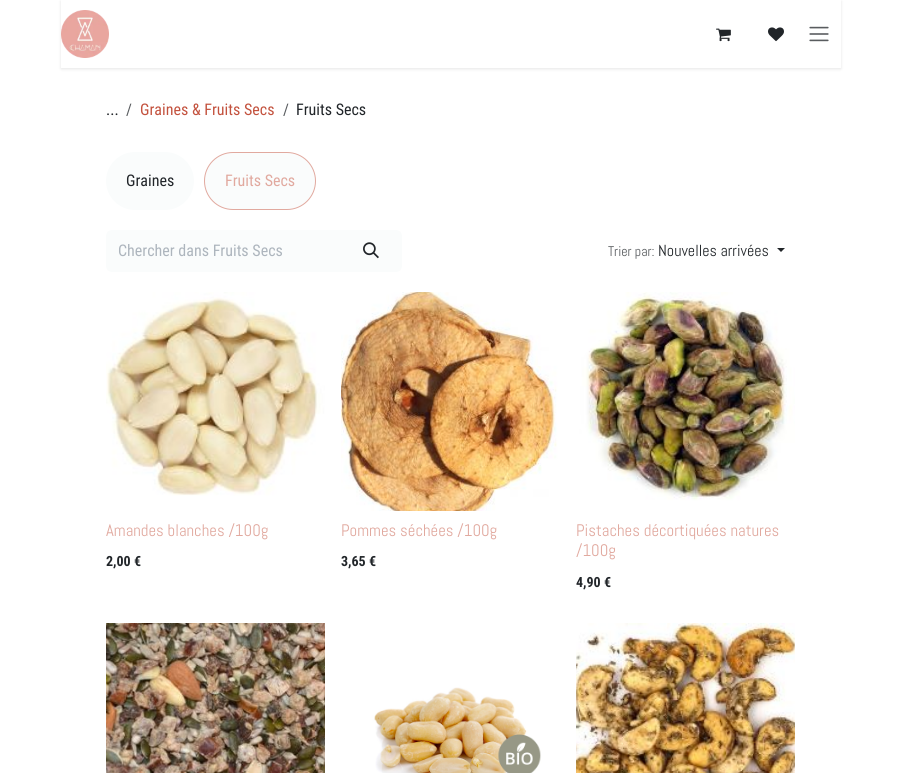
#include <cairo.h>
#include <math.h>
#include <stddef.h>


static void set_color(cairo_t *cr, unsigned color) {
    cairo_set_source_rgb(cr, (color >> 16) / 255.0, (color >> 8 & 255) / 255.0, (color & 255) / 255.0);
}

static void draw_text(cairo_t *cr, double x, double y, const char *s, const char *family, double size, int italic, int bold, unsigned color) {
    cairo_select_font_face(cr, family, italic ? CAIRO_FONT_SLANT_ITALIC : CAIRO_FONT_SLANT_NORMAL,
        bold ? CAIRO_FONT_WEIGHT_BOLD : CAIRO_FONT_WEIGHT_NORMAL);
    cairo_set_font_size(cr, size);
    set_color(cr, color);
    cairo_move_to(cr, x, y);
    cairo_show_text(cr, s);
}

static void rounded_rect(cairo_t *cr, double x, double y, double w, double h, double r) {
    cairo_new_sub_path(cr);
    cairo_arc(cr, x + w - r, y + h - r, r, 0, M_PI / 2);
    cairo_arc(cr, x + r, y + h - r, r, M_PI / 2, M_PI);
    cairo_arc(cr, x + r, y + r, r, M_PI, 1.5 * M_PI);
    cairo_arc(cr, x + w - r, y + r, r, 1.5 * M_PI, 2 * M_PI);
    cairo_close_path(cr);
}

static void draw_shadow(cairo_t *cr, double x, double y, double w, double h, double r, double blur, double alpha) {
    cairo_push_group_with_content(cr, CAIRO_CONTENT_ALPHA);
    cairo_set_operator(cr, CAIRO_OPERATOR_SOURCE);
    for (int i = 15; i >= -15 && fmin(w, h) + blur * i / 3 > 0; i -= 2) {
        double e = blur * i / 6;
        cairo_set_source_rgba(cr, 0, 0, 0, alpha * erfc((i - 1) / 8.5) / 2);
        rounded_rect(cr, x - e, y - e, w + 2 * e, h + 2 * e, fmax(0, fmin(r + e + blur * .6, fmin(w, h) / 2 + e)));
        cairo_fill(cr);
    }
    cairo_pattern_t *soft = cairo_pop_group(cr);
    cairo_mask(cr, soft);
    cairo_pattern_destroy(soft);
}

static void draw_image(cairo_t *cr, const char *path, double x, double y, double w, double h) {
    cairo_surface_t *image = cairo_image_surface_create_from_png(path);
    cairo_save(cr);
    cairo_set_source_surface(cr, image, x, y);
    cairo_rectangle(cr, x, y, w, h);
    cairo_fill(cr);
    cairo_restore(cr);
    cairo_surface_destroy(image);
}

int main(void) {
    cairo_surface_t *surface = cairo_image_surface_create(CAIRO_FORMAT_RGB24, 901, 773);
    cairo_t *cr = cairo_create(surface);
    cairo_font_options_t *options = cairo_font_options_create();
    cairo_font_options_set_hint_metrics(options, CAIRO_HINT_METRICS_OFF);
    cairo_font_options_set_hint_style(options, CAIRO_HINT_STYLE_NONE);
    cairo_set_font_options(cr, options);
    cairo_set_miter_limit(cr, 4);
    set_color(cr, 0xFFFFFF);
    cairo_paint(cr);
    cairo_save(cr);
    cairo_set_fill_rule(cr, CAIRO_FILL_RULE_EVEN_ODD);
    cairo_new_path(cr);
    cairo_move_to(cr, 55, 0);
    cairo_line_to(cr, 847, 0);
    cairo_line_to(cr, 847, 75);
    cairo_line_to(cr, 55, 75);
    cairo_close_path(cr);
    cairo_move_to(cr, 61, 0);
    cairo_line_to(cr, 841, 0);
    cairo_line_to(cr, 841, 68);
    cairo_line_to(cr, 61, 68);
    cairo_close_path(cr);
    cairo_clip(cr);
    set_color(cr, 0x000000);
    draw_shadow(cr, 61, 1, 780, 68, 0, 1.5, 0.1);
    cairo_restore(cr);
    draw_image(cr, "assets/img1.png", 61, 10, 48, 48);
    draw_image(cr, "assets/img2.png", 716, 28, 15, 14);
    draw_image(cr, "assets/img3.png", 768, 27, 16, 15);
    draw_image(cr, "assets/img4.png", 809, 26, 20, 16);
    draw_text(cr, 106, 115, "...", "Roboto Condensed", 16, 0, 0, 0x212529);
    draw_text(cr, 126, 115, "/", "Roboto Condensed", 16, 0, 0, 0x595C5F);
    draw_text(cr, 140, 115, "Graines & Fruits Secs", "Roboto Condensed", 16, 0, 0, 0xC3523E);
    draw_text(cr, 283, 115, "/", "Roboto Condensed", 16, 0, 0, 0x595C5F);
    draw_text(cr, 296, 115, "Fruits Secs", "Roboto Condensed", 16, 0, 0, 0x212529);
    set_color(cr, 0xFAFCFC);
    rounded_rect(cr, 106, 152, 88, 58, 29);
    cairo_fill(cr);
    draw_text(cr, 126, 186, "Graines", "Roboto Condensed", 16, 0, 0, 0x212529);
    set_color(cr, 0xFAFCFC);
    rounded_rect(cr, 204.5, 152.5, 111, 57, 28.5);
    cairo_fill_preserve(cr);
    set_color(cr, 0xE1A99F);
    cairo_set_line_width(cr, 1);
    cairo_stroke(cr);
    draw_text(cr, 225, 186, "Fruits Secs", "Roboto Condensed", 16, 0, 0, 0xE1A99F);
    set_color(cr, 0xFAFCFC);
    cairo_new_path(cr);
    cairo_move_to(cr, 112, 230);
    cairo_line_to(cr, 342, 230);
    cairo_line_to(cr, 342, 272);
    cairo_line_to(cr, 112, 272);
    cairo_curve_to(cr, 108.5, 272, 106, 269.5, 106, 266);
    cairo_line_to(cr, 106, 236);
    cairo_curve_to(cr, 106, 232.5, 108.5, 230, 112, 230);
    cairo_close_path(cr);
    cairo_fill(cr);
    draw_text(cr, 118, 256, "Chercher dans Fruits Secs", "Roboto Condensed", 16, 0, 0, 0xADB5BD);
    set_color(cr, 0xFAFCFC);
    cairo_new_path(cr);
    cairo_move_to(cr, 341, 230);
    cairo_line_to(cr, 396, 230);
    cairo_curve_to(cr, 399.5, 230, 402, 232.5, 402, 236);
    cairo_line_to(cr, 402, 266);
    cairo_curve_to(cr, 402, 269.5, 399.5, 272, 396, 272);
    cairo_line_to(cr, 341, 272);
    cairo_close_path(cr);
    cairo_fill(cr);
    draw_image(cr, "assets/img5.png", 363, 242, 16, 17);
    draw_text(cr, 608, 256, "Trier par:", "Abel", 14, 0, 0, 0x595C5F);
    draw_text(cr, 658, 256, "Nouvelles arrivées", "Abel", 16, 0, 0, 0x212529);
    cairo_new_path(cr);
    cairo_move_to(cr, 777, 248);
    cairo_line_to(cr, 785, 248);
    cairo_line_to(cr, 781, 252);
    cairo_close_path(cr);
    cairo_fill(cr);
    draw_image(cr, "assets/img6.png", 106, 292, 219, 219);
    draw_text(cr, 106, 536, "Amandes blanches /100g", "Abel", 16.75, 0, 0, 0xE1A99F);
    draw_text(cr, 106, 566, "2,00 €", "Roboto Condensed", 14, 0, 1, 0x212529);
    draw_image(cr, "assets/img7.png", 341, 292, 219, 219);
    draw_text(cr, 341, 536, "Pommes séchées /100g", "Abel", 16.75, 0, 0, 0xE1A99F);
    draw_text(cr, 341, 566, "3,65 €", "Roboto Condensed", 14, 0, 1, 0x212529);
    draw_image(cr, "assets/img8.png", 576, 292, 219, 219);
    draw_text(cr, 576, 536, "Pistaches décortiquées natures", "Abel", 16.75, 0, 0, 0xE1A99F);
    draw_text(cr, 576, 556, "/100g", "Abel", 16.75, 0, 0, 0xE1A99F);
    draw_text(cr, 576, 587, "4,90 €", "Roboto Condensed", 14, 0, 1, 0x212529);
    draw_image(cr, "assets/img9.png", 106, 623, 219, 150);
    draw_image(cr, "assets/img10.png", 341, 623, 219, 150);
    draw_image(cr, "assets/img11.png", 576, 623, 219, 150);
    cairo_surface_write_to_png(surface, "output.png");
    cairo_font_options_destroy(options);
    cairo_destroy(cr);
    cairo_surface_destroy(surface);
    return 0;
}
